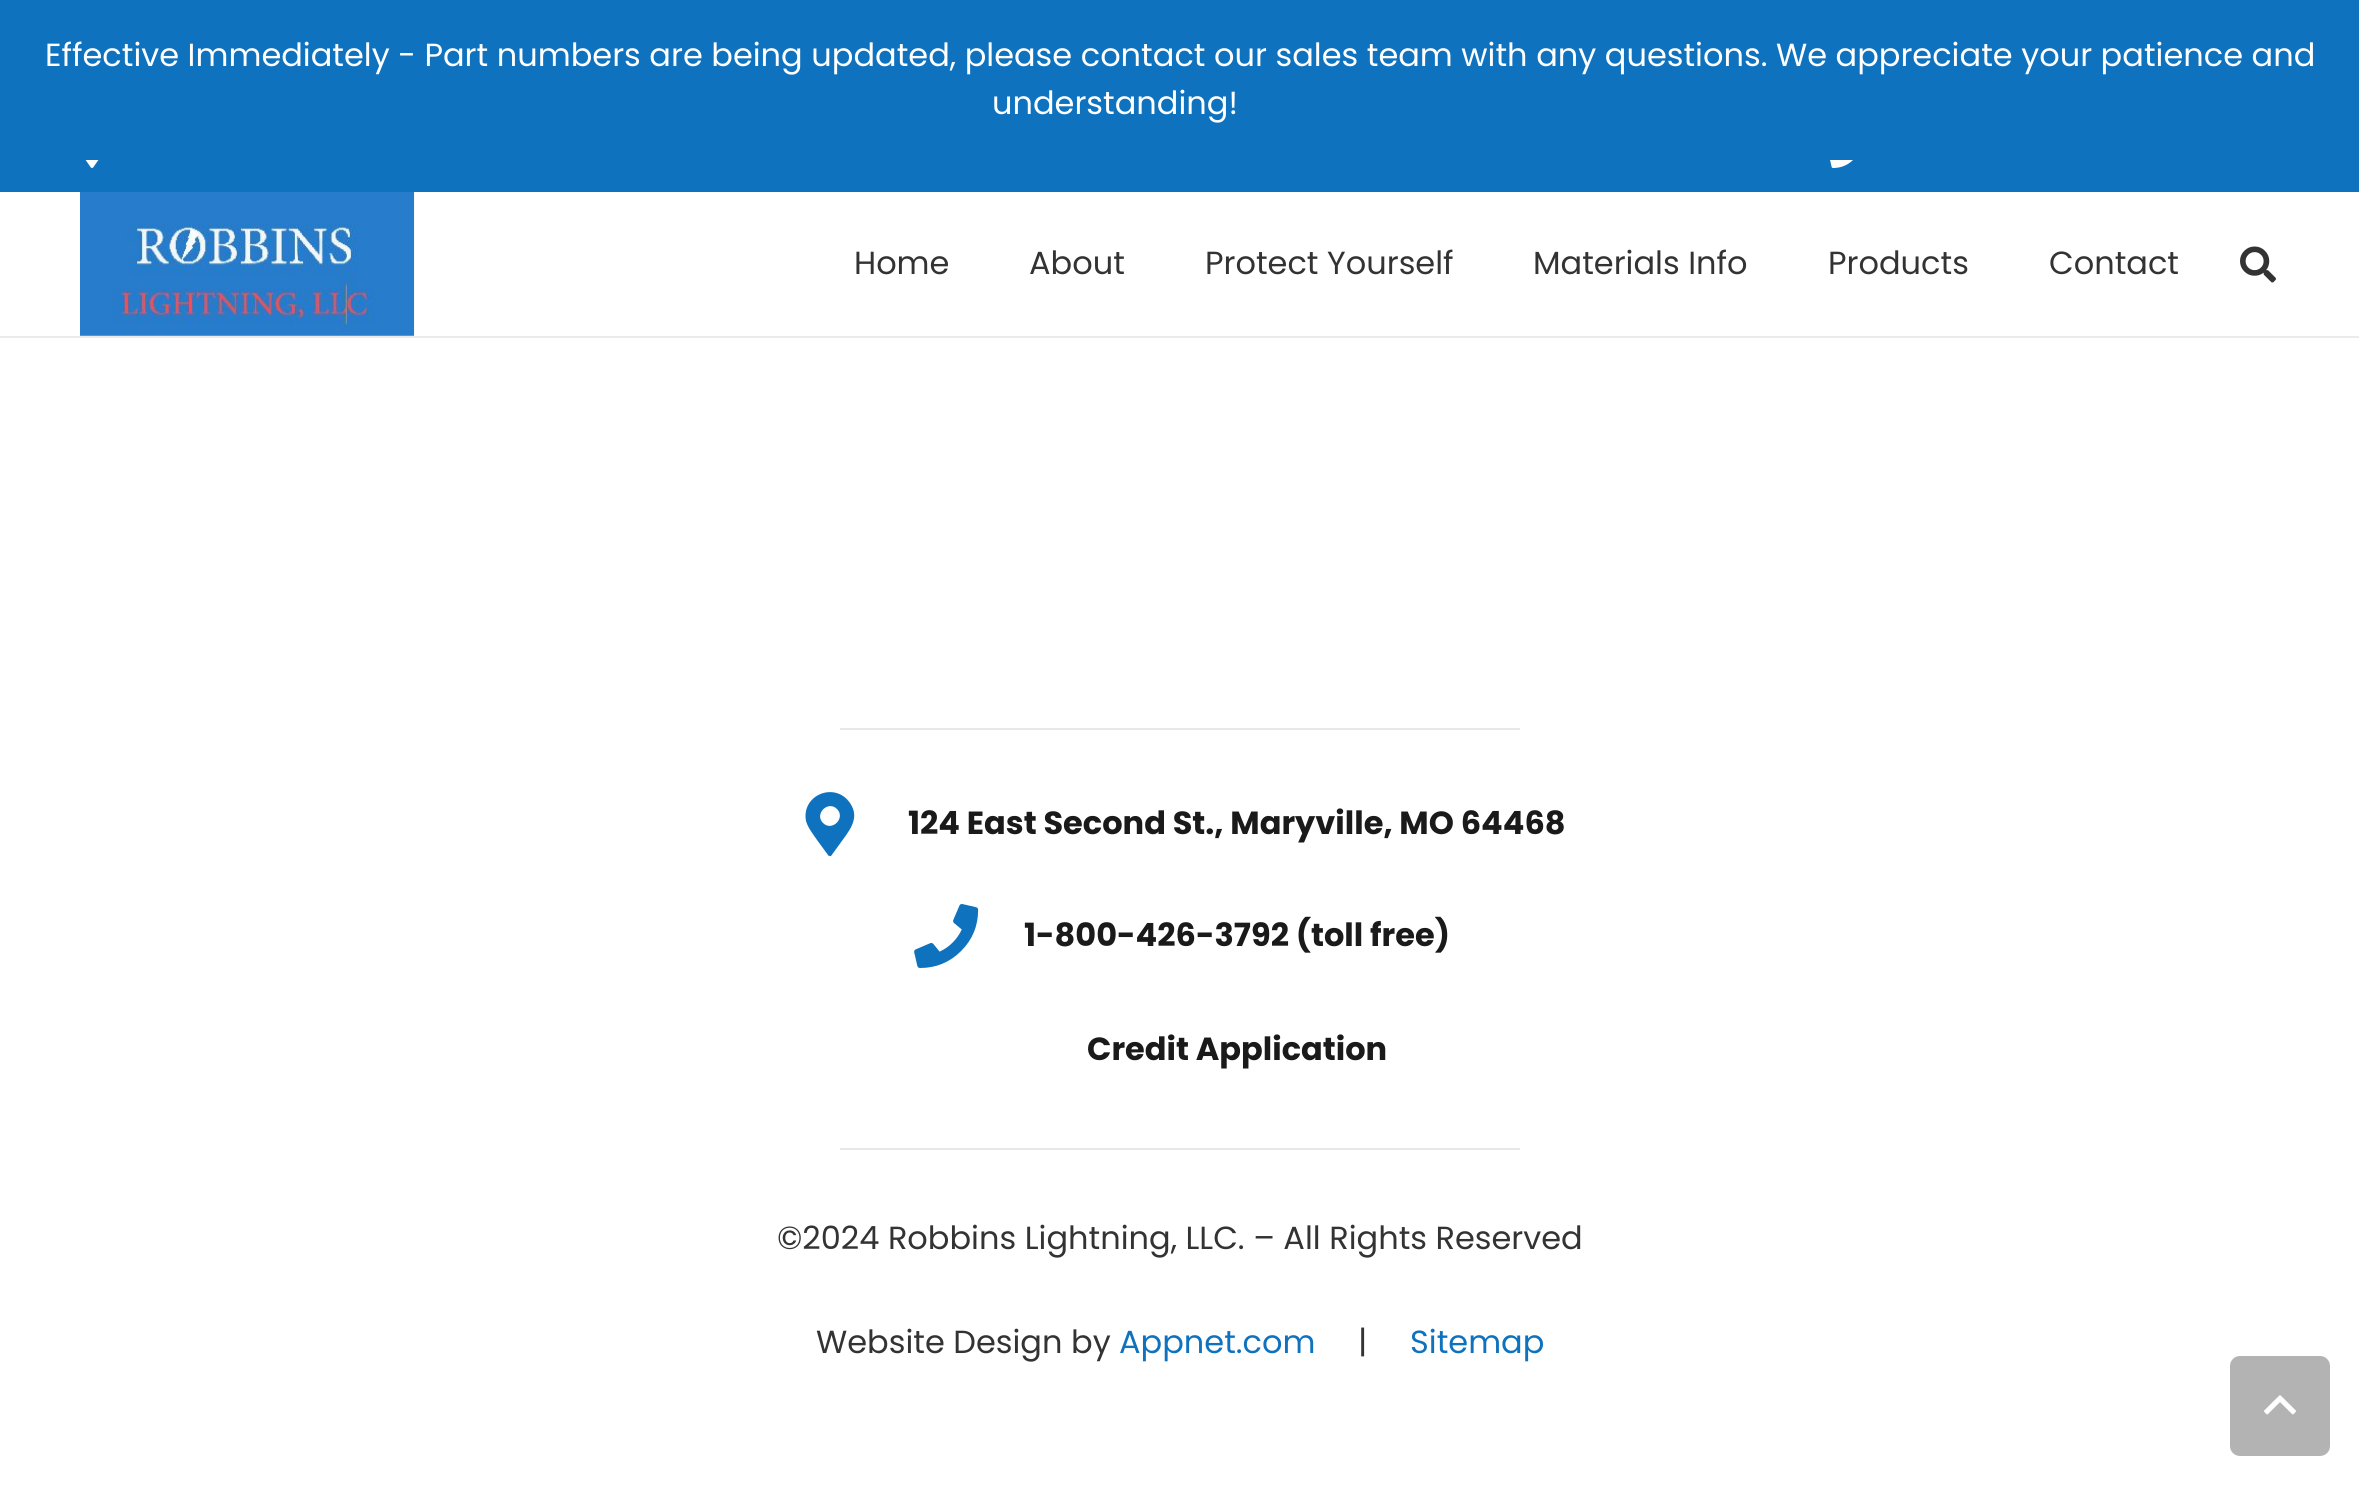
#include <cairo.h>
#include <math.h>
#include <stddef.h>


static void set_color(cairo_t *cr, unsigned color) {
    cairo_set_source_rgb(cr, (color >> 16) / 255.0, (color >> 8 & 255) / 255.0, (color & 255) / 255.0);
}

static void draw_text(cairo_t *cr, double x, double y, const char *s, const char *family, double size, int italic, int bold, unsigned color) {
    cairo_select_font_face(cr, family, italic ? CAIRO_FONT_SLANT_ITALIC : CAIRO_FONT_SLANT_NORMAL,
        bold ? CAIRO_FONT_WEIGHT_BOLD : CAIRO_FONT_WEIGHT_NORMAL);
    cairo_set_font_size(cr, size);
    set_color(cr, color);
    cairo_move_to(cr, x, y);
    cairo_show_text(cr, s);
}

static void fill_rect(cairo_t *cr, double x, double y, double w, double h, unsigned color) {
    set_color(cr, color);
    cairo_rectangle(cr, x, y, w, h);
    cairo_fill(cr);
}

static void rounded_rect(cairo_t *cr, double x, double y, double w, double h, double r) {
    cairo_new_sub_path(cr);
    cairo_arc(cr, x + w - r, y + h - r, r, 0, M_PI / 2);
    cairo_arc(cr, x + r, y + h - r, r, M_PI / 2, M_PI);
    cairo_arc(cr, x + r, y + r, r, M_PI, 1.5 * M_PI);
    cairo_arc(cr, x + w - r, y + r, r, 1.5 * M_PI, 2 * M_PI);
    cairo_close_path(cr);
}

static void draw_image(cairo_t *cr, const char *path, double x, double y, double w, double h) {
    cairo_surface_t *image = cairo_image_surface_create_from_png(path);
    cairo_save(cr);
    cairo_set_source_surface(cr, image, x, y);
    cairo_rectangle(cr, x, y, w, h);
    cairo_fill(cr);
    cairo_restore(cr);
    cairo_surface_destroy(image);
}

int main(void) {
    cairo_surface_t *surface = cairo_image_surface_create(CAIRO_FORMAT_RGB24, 2359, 1486);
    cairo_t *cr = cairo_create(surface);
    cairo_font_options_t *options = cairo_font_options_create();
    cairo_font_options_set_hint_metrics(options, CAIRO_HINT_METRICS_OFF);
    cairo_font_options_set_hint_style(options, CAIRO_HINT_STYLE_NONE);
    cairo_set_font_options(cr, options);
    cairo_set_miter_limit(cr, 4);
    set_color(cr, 0xFFFFFF);
    cairo_paint(cr);
    fill_rect(cr, 0, 0, 2359, 192, 0x0F72BE);
    draw_text(cr, 45, 66, "Effective Immediately - Part numbers are being updated, please contact our sales team with any questions. We appreciate your patience and", "Poppins", 32, 0, 0, 0xFFFFFF);
    draw_text(cr, 992, 114, "understanding!", "Poppins", 32, 0, 0, 0xFFFFFF);
    draw_image(cr, "assets/img1.png", 85, 160, 14, 8);
    draw_image(cr, "assets/img2.png", 1830, 160, 23, 8);
    fill_rect(cr, 0, 336, 2359, 2, 0xEBEBEB);
    draw_image(cr, "assets/img3.png", 80, 192, 335, 144);
    draw_text(cr, 854, 274, "Home", "Poppins", 32, 0, 0, 0x333333);
    draw_text(cr, 1029, 274, "About", "Poppins", 32, 0, 0, 0x333333);
    draw_text(cr, 1205, 274, "Protect Yourself", "Poppins", 32, 0, 0, 0x333333);
    draw_text(cr, 1533, 274, "Materials Info", "Poppins", 32, 0, 0, 0x333333);
    draw_text(cr, 1828, 274, "Products", "Poppins", 32, 0, 0, 0x333333);
    draw_text(cr, 2049, 274, "Contact", "Poppins", 32, 0, 0, 0x333333);
    draw_image(cr, "assets/img4.png", 2240, 246, 36, 37);
    fill_rect(cr, 840, 728, 680, 2, 0xE8E8E8);
    set_color(cr, 0x0F72BE);
    cairo_new_path(cr);
    cairo_move_to(cr, 828, 855);
    cairo_line_to(cr, 817, 840);
    cairo_curve_to(cr, 813, 834, 808, 828, 806, 821);
    cairo_curve_to(cr, 801, 795, 835, 781, 850, 803);
    cairo_curve_to(cr, 861, 819, 848, 832, 839, 845);
    cairo_line_to(cr, 831, 856);
    cairo_curve_to(cr, 830, 856, 828, 856, 828, 855);
    cairo_close_path(cr);
    cairo_move_to(cr, 823, 823);
    cairo_curve_to(cr, 832, 832, 846, 818, 837, 809);
    cairo_curve_to(cr, 828, 800, 814, 814, 823, 823);
    cairo_close_path(cr);
    cairo_fill(cr);
    draw_text(cr, 908, 834, "124 East Second St., Maryville, MO 64468", "Poppins", 32, 0, 1, 0x1A1A1A);
    draw_image(cr, "assets/img5.png", 914, 904, 65, 64);
    draw_text(cr, 1024, 946, "1-800-426-3792 (toll free)", "Poppins", 32, 0, 1, 0x1A1A1A);
    draw_text(cr, 1087, 1060, "Credit Application", "Poppins", 32, 0, 1, 0x1A1A1A);
    fill_rect(cr, 840, 1148, 680, 2, 0xE8E8E8);
    draw_text(cr, 777, 1249, "©2024 Robbins Lightning, LLC. – All Rights Reserved", "Poppins", 32, 0, 0, 0x333333);
    draw_text(cr, 816, 1353, "Website Design by", "Poppins", 32, 0, 0, 0x333333);
    draw_text(cr, 1119, 1353, "Appnet.com", "Poppins", 32, 0, 0, 0x0F72BE);
    draw_text(cr, 1358, 1353, "|", "Poppins", 32, 0, 0, 0x333333);
    draw_text(cr, 1410, 1353, "Sitemap", "Poppins", 32, 0, 0, 0x0F72BE);
    set_color(cr, 0xB3B3B3);
    rounded_rect(cr, 2230, 1356, 100, 100, 10);
    cairo_fill(cr);
    draw_image(cr, "assets/img6.png", 2264, 1395, 32, 20);
    cairo_surface_write_to_png(surface, "output.png");
    cairo_font_options_destroy(options);
    cairo_destroy(cr);
    cairo_surface_destroy(surface);
    return 0;
}
